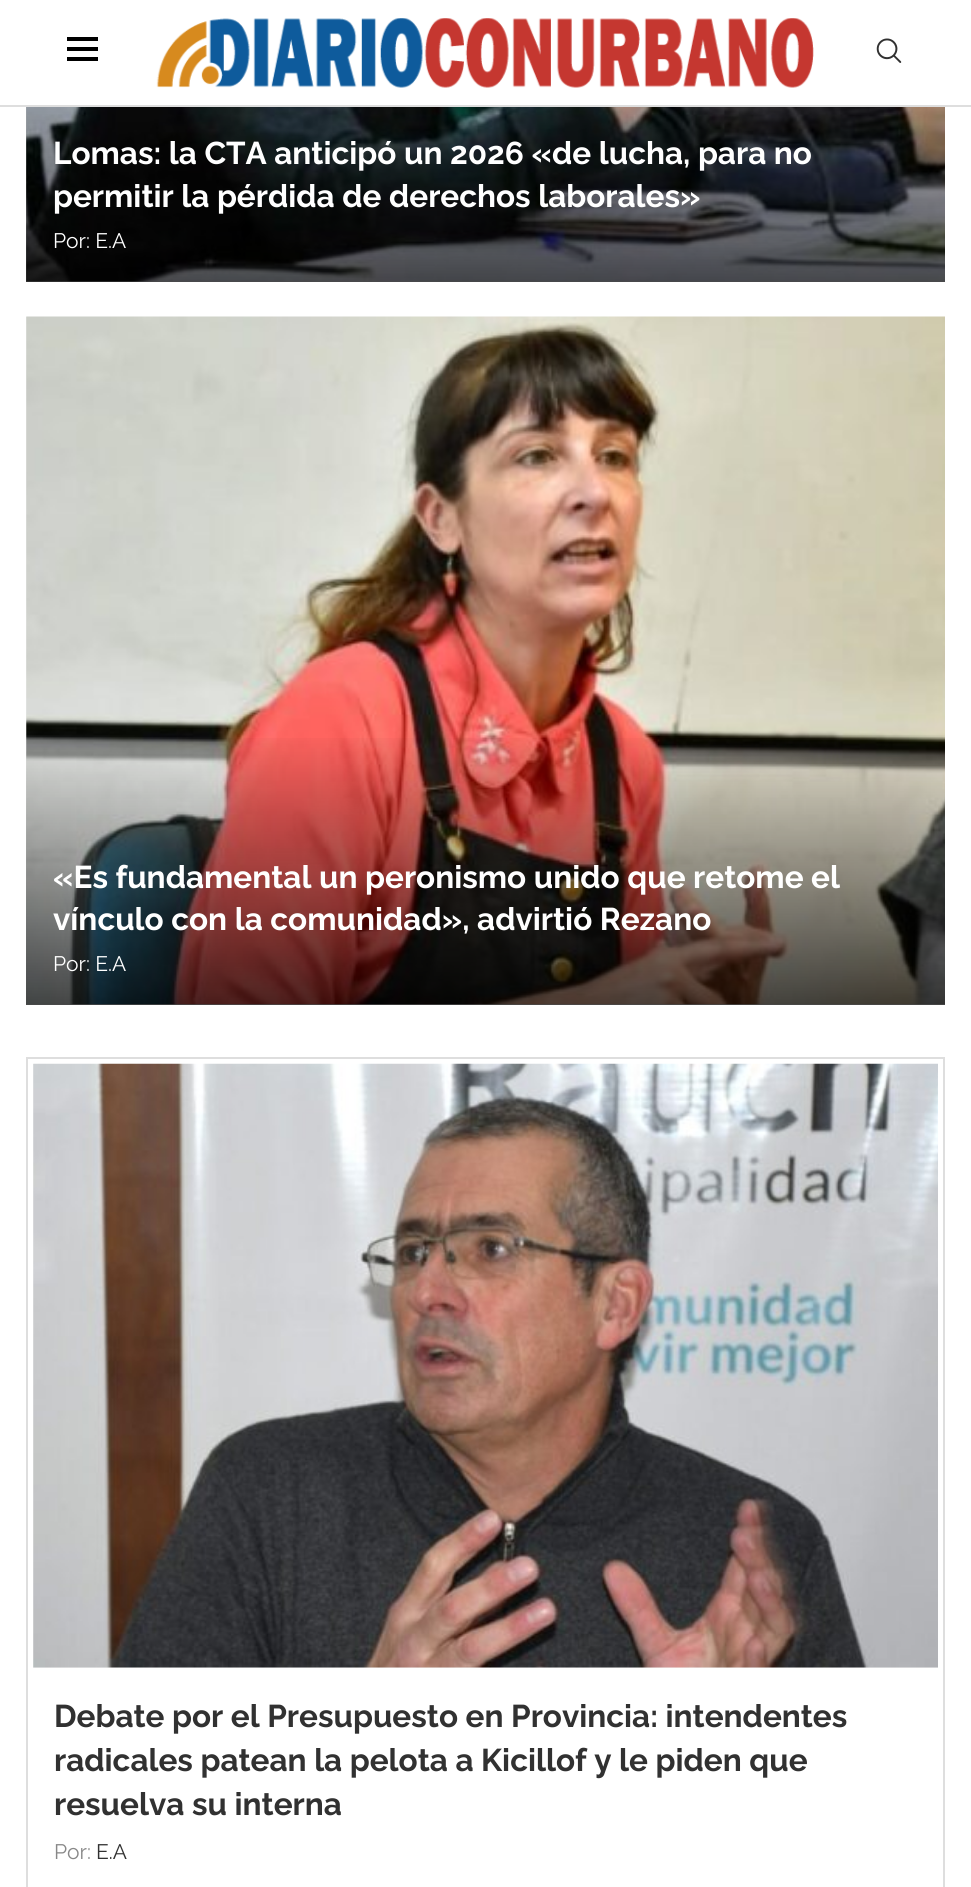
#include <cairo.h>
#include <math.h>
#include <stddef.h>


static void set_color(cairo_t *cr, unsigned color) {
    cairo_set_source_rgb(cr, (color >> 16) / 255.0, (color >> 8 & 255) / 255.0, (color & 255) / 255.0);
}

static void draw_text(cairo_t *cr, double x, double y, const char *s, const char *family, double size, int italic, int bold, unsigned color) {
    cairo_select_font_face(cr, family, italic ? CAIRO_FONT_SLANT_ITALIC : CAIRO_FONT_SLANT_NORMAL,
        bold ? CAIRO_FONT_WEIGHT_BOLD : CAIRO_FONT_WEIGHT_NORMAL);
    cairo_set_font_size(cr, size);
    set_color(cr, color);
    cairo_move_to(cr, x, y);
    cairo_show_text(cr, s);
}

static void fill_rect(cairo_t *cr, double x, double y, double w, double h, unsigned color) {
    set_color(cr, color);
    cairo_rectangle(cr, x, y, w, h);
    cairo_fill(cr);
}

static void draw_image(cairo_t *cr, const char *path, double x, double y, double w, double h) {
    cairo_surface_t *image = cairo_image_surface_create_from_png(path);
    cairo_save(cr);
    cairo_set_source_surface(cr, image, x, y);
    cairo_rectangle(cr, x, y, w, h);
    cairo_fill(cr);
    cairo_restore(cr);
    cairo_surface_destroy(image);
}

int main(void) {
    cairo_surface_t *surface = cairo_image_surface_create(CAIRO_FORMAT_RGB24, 971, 1887);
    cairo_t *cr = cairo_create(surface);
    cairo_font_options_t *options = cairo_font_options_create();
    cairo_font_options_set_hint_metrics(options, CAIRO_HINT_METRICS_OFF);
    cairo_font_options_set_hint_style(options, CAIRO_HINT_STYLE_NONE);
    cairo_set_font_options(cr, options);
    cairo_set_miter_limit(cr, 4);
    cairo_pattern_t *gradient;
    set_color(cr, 0xFFFFFF);
    cairo_paint(cr);
    fill_rect(cr, 0, 105, 971, 2, 0xDEDEDE);
    fill_rect(cr, 67, 37, 31, 4, 0x000000);
    fill_rect(cr, 67, 47, 31, 4, 0x000000);
    fill_rect(cr, 67, 57, 31, 4, 0x000000);
    draw_image(cr, "assets/img1.png", 156, 18, 658, 70);
    draw_image(cr, "assets/img2.png", 876, 38, 26, 25);
    fill_rect(cr, 26, 107, 919, 175, 0xF5F5F5);
    draw_image(cr, "assets/img3.png", 26, 107, 919, 175);
    gradient = cairo_pattern_create_linear(486, -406, 486, 282);
    cairo_pattern_add_color_stop_rgba(gradient, 0.6, 0, 0, 0, 0);
    cairo_pattern_add_color_stop_rgba(gradient, 1, 0, 0, 0, 0.7);
    cairo_set_source(cr, gradient);
    cairo_pattern_destroy(gradient);
    cairo_rectangle(cr, 26, 107, 919, 175);
    cairo_fill(cr);
    draw_text(cr, 53, 164, "Lomas: la CTA anticipó un 2026 «de lucha, para no", "Raleway", 31.5, 0, 1, 0xFFFFFF);
    draw_text(cr, 53, 207, "permitir la pérdida de derechos laborales»", "Raleway", 31.5, 0, 1, 0xFFFFFF);
    draw_text(cr, 53, 248, "Por: E.A", "Raleway", 21, 0, 0, 0xFFFFFF);
    fill_rect(cr, 26, 317, 919, 688, 0xF5F5F5);
    draw_image(cr, "assets/img4.png", 26, 316, 919, 689);
    gradient = cairo_pattern_create_linear(486, 317, 486, 1005);
    cairo_pattern_add_color_stop_rgba(gradient, 0.6, 0, 0, 0, 0);
    cairo_pattern_add_color_stop_rgba(gradient, 1, 0, 0, 0, 0.7);
    cairo_set_source(cr, gradient);
    cairo_pattern_destroy(gradient);
    cairo_rectangle(cr, 26, 738, 919, 267);
    cairo_fill(cr);
    draw_text(cr, 53, 888, "«Es fundamental un peronismo unido que retome el", "Raleway", 31.5, 0, 1, 0xFFFFFF);
    draw_text(cr, 53, 930, "vínculo con la comunidad», advirtió Rezano", "Raleway", 31.5, 0, 1, 0xFFFFFF);
    draw_text(cr, 53, 971, "Por: E.A", "Raleway", 21, 0, 0, 0xFFFFFF);
    cairo_rectangle(cr, 27, 1058, 917, 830);
    set_color(cr, 0xDEDEDE);
    cairo_stroke(cr);
    fill_rect(cr, 33, 1064, 905, 604, 0xF5F5F5);
    draw_image(cr, "assets/img5.png", 33, 1063, 905, 605);
    draw_text(cr, 54, 1727, "Debate por el Presupuesto en Provincia: intendentes", "Raleway", 31.5, 0, 1, 0x313131);
    draw_text(cr, 54, 1771, "radicales patean la pelota a Kicillof y le piden que", "Raleway", 31.5, 0, 1, 0x313131);
    draw_text(cr, 54, 1815, "resuelva su interna", "Raleway", 31.5, 0, 1, 0x313131);
    draw_text(cr, 54, 1859, "Por:", "Raleway", 21, 0, 0, 0x888888);
    draw_text(cr, 96, 1859, "E.A", "Raleway", 21, 0, 0, 0x313131);
    cairo_surface_write_to_png(surface, "output.png");
    cairo_font_options_destroy(options);
    cairo_destroy(cr);
    cairo_surface_destroy(surface);
    return 0;
}
